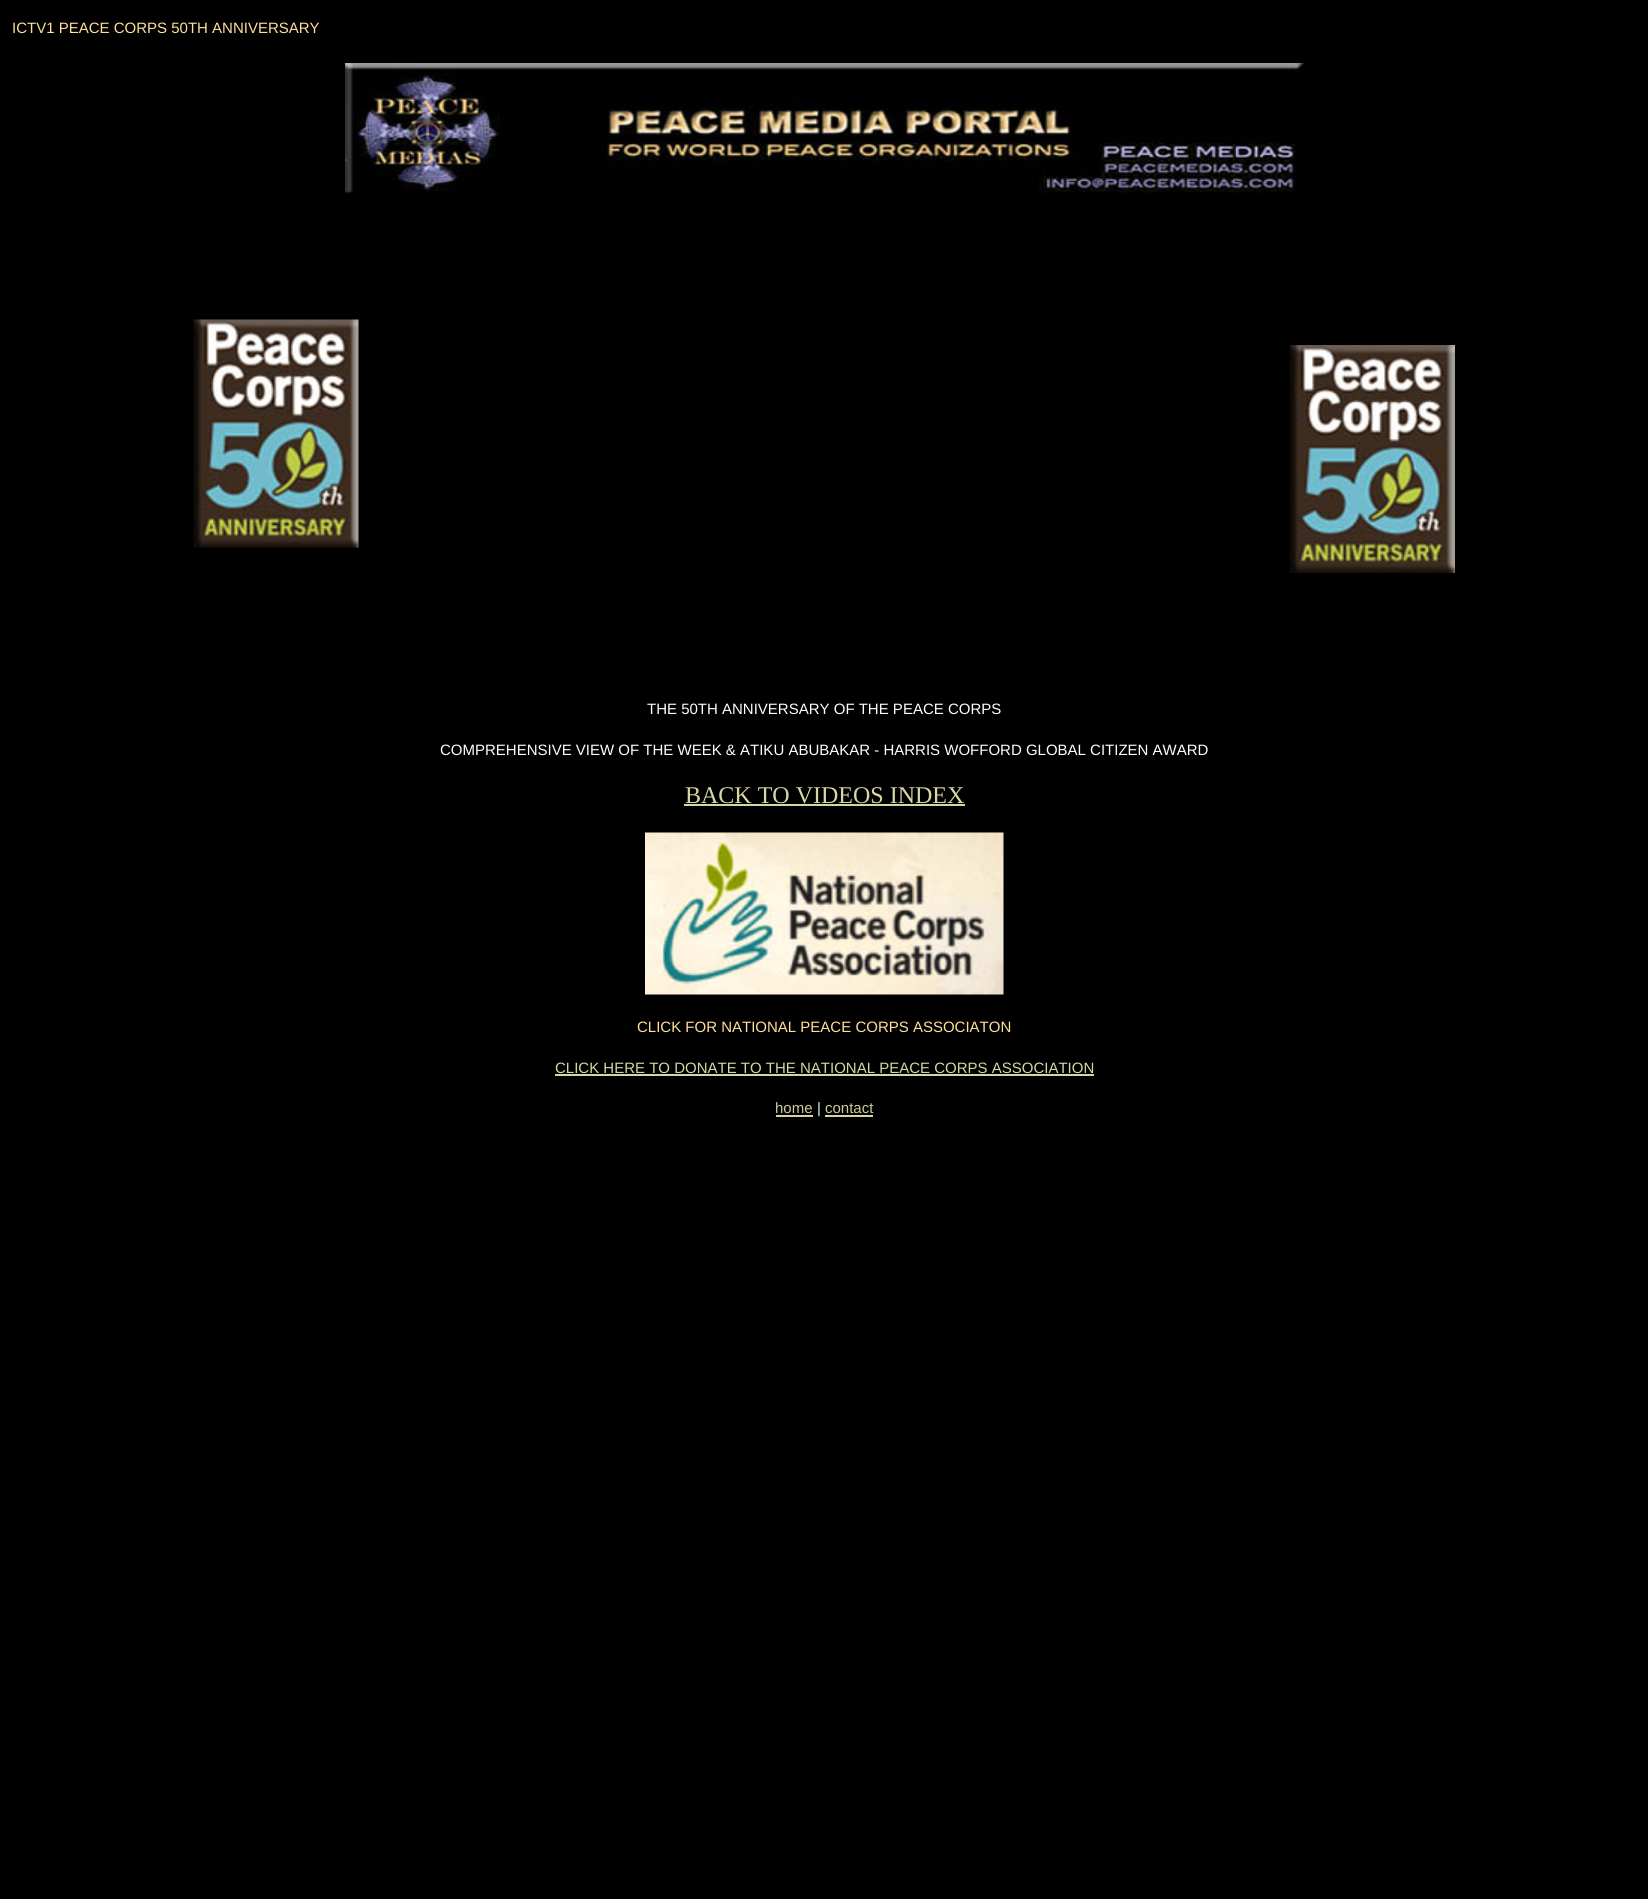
#include <cairo.h>
#include <math.h>
#include <stddef.h>


static void set_color(cairo_t *cr, unsigned color) {
    cairo_set_source_rgb(cr, (color >> 16) / 255.0, (color >> 8 & 255) / 255.0, (color & 255) / 255.0);
}

static void draw_text(cairo_t *cr, double x, double y, const char *s, const char *family, double size, int italic, int bold, unsigned color) {
    cairo_select_font_face(cr, family, italic ? CAIRO_FONT_SLANT_ITALIC : CAIRO_FONT_SLANT_NORMAL,
        bold ? CAIRO_FONT_WEIGHT_BOLD : CAIRO_FONT_WEIGHT_NORMAL);
    cairo_set_font_size(cr, size);
    set_color(cr, color);
    cairo_move_to(cr, x, y);
    cairo_show_text(cr, s);
}

static void fill_rect(cairo_t *cr, double x, double y, double w, double h, unsigned color) {
    set_color(cr, color);
    cairo_rectangle(cr, x, y, w, h);
    cairo_fill(cr);
}

static void draw_image(cairo_t *cr, const char *path, double x, double y, double w, double h) {
    cairo_surface_t *image = cairo_image_surface_create_from_png(path);
    cairo_save(cr);
    cairo_set_source_surface(cr, image, x, y);
    cairo_rectangle(cr, x, y, w, h);
    cairo_fill(cr);
    cairo_restore(cr);
    cairo_surface_destroy(image);
}

int main(void) {
    cairo_surface_t *surface = cairo_image_surface_create(CAIRO_FORMAT_RGB24, 1648, 1899);
    cairo_t *cr = cairo_create(surface);
    cairo_font_options_t *options = cairo_font_options_create();
    cairo_font_options_set_hint_metrics(options, CAIRO_HINT_METRICS_OFF);
    cairo_font_options_set_hint_style(options, CAIRO_HINT_STYLE_NONE);
    cairo_set_font_options(cr, options);
    cairo_set_miter_limit(cr, 4);
    set_color(cr, 0x000000);
    cairo_paint(cr);
    draw_text(cr, 12, 33, "ICTV1 PEACE CORPS 50TH ANNIVERSARY", "Liberation Sans", 15, 0, 0, 0xFFE099);
    draw_image(cr, "assets/img1.png", 345, 63, 960, 133);
    draw_image(cr, "assets/img2.png", 193, 319, 166, 229);
    draw_image(cr, "assets/img3.png", 1290, 345, 165, 228);
    draw_text(cr, 647, 714, "THE 50TH ANNIVERSARY OF THE PEACE CORPS", "Liberation Sans", 15, 0, 0, 0xFAFFFF);
    draw_text(cr, 440, 755, "COMPREHENSIVE VIEW OF THE WEEK & ATIKU ABUBAKAR - HARRIS WOFFORD GLOBAL CITIZEN AWARD", "Liberation Sans", 15, 0, 0, 0xFAFFFF);
    draw_text(cr, 685, 803, "BACK TO VIDEOS INDEX", "Liberation Serif", 24, 0, 0, 0xD7D7A4);
    fill_rect(cr, 684, 804, 281, 2, 0xD7D7A4);
    draw_image(cr, "assets/img4.png", 645, 832, 359, 163);
    draw_text(cr, 637, 1032, "CLICK FOR NATIONAL PEACE CORPS ASSOCIATON", "Liberation Sans", 15, 0, 0, 0xFFE099);
    draw_text(cr, 555, 1073, "CLICK HERE TO DONATE TO THE NATIONAL PEACE CORPS ASSOCIATION", "Liberation Sans", 15, 0, 0, 0xD7D7A4);
    fill_rect(cr, 555, 1074, 539, 2, 0xD7D7A4);
    draw_text(cr, 775, 1113, "home", "Liberation Sans", 15, 0, 0, 0xCCCC99);
    fill_rect(cr, 776, 1115, 37, 2, 0xD7D7A4);
    draw_text(cr, 817, 1113, "|", "Liberation Sans", 15, 0, 0, 0xCCFFFF);
    draw_text(cr, 825, 1113, "contact", "Liberation Sans", 15, 0, 0, 0xCCCC99);
    fill_rect(cr, 825, 1115, 48, 2, 0xD7D7A4);
    cairo_surface_write_to_png(surface, "output.png");
    cairo_font_options_destroy(options);
    cairo_destroy(cr);
    cairo_surface_destroy(surface);
    return 0;
}
